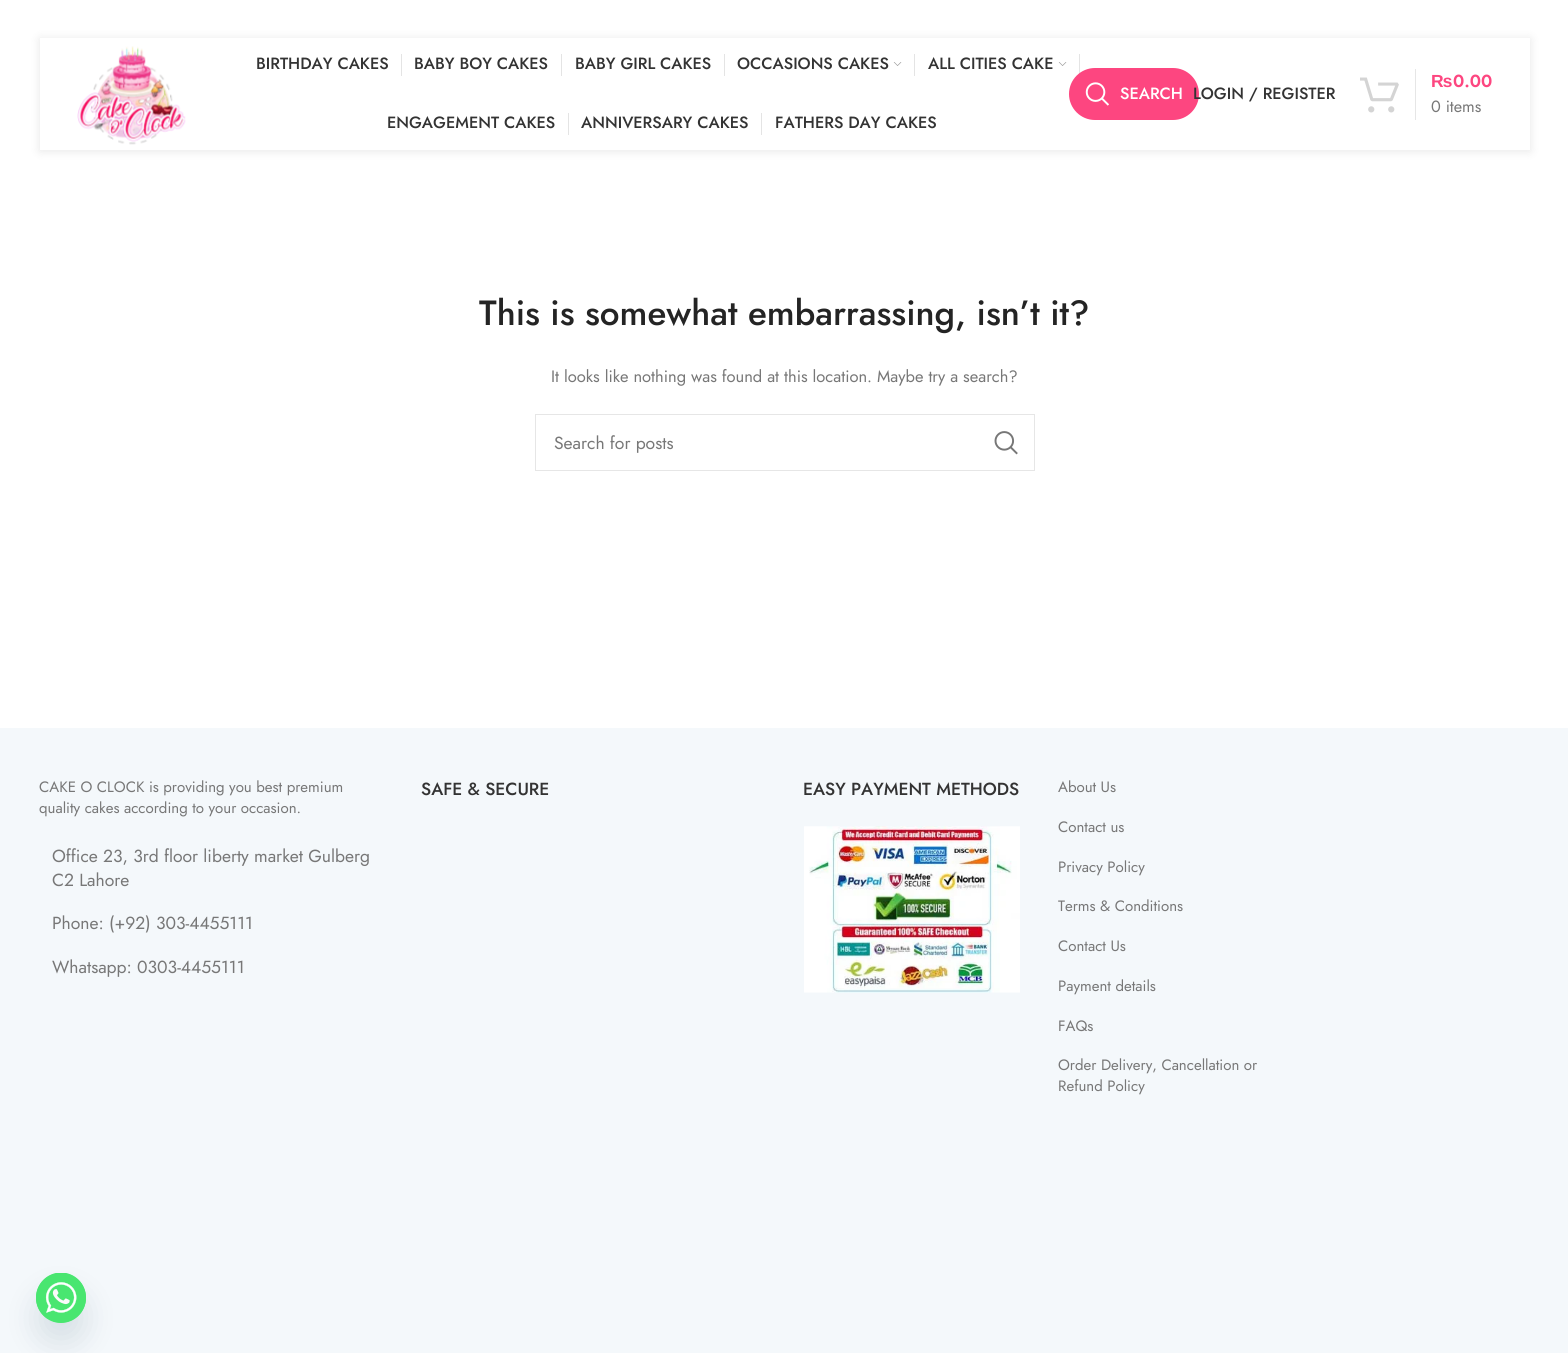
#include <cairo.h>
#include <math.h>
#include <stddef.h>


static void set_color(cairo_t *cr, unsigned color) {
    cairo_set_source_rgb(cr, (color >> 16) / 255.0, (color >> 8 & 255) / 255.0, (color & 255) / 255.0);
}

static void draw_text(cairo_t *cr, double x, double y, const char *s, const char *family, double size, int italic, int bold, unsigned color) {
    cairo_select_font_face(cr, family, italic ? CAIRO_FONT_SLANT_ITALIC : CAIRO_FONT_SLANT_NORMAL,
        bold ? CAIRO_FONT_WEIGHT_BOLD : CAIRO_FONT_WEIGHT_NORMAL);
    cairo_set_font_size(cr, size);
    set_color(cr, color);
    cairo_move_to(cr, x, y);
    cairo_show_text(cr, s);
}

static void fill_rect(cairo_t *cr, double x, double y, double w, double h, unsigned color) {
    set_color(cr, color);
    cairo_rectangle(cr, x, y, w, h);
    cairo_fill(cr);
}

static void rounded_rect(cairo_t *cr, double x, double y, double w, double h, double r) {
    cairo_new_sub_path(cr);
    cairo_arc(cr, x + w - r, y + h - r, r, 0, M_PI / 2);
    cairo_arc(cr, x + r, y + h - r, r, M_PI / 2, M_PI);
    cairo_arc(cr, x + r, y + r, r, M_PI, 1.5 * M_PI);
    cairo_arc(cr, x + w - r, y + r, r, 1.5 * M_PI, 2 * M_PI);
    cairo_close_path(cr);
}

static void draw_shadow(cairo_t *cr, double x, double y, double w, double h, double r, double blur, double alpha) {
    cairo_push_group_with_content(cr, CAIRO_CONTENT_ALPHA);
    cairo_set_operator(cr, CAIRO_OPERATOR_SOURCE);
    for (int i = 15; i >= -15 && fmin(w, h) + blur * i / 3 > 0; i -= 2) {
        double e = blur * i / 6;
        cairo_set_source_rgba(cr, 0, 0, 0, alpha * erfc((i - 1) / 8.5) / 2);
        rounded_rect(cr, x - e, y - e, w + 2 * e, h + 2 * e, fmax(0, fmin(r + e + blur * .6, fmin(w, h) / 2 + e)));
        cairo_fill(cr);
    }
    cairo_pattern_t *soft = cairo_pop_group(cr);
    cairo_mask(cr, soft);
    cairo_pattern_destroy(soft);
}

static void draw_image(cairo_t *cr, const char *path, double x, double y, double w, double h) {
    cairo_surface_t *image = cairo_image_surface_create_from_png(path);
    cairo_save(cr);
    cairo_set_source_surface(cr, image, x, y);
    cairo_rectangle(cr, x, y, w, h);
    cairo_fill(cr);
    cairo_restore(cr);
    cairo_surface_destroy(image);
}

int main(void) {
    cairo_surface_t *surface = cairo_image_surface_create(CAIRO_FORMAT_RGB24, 1568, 1353);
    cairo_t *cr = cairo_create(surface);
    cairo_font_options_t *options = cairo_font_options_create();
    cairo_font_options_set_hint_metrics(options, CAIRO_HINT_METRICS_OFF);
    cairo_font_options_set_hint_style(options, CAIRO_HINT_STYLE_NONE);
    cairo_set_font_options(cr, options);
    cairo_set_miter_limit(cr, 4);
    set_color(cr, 0xFFFFFF);
    cairo_paint(cr);
    set_color(cr, 0x000000);
    draw_shadow(cr, 40, 39, 1490, 112, 0, 5, 0.1);
    fill_rect(cr, 40, 38, 1490, 112, 0xFFFFFF);
    draw_image(cr, "assets/img1.png", 77, 46, 109, 99);
    draw_text(cr, 256, 69, "BIRTHDAY CAKES", "Jost Medium", 16.25, 0, 0, 0x333333);
    fill_rect(cr, 401, 54, 1, 22, 0xE4E4E4);
    draw_text(cr, 414, 69, "BABY BOY CAKES", "Jost Medium", 16.25, 0, 0, 0x333333);
    fill_rect(cr, 561, 54, 1, 22, 0xE4E4E4);
    draw_text(cr, 575, 69, "BABY GIRL CAKES", "Jost Medium", 16.25, 0, 0, 0x333333);
    fill_rect(cr, 724, 54, 1, 22, 0xE4E4E4);
    draw_text(cr, 737, 69, "OCCASIONS CAKES", "Jost Medium", 16.25, 0, 0, 0x333333);
    draw_image(cr, "assets/img2.png", 893, 62, 9, 4);
    fill_rect(cr, 914, 54, 1, 22, 0xE4E4E4);
    draw_text(cr, 928, 69, "ALL CITIES CAKE", "Jost Medium", 16.25, 0, 0, 0x333333);
    draw_image(cr, "assets/img2.png", 1058, 62, 9, 4);
    fill_rect(cr, 1079, 54, 1, 22, 0xE4E4E4);
    draw_text(cr, 387, 128, "ENGAGEMENT CAKES", "Jost Medium", 16.25, 0, 0, 0x333333);
    fill_rect(cr, 568, 113, 1, 22, 0xE4E4E4);
    draw_text(cr, 581, 128, "ANNIVERSARY CAKES", "Jost Medium", 16.25, 0, 0, 0x333333);
    fill_rect(cr, 761, 113, 1, 22, 0xE4E4E4);
    draw_text(cr, 775, 128, "FATHERS DAY CAKES", "Jost Medium", 16.25, 0, 0, 0x333333);
    set_color(cr, 0xFD4680);
    rounded_rect(cr, 1069, 68, 130, 52, 26);
    cairo_fill(cr);
    draw_image(cr, "assets/img3.png", 1085, 82, 24, 24);
    draw_text(cr, 1120, 99, "SEARCH", "Jost Medium", 16.25, 0, 0, 0xFFFFFF);
    draw_text(cr, 1193, 99, "LOGIN / REGISTER", "Jost Medium", 16.25, 0, 0, 0x333333);
    draw_image(cr, "assets/img4.png", 1360, 77, 39, 36);
    fill_rect(cr, 1415, 69, 1, 51, 0xE6E6E6);
    draw_text(cr, 1431, 87, "₨", "Liberation Sans", 17.5, 0, 1, 0xFD4680);
    draw_text(cr, 1453, 87, "0.00", "Jost SemiBold", 17.5, 0, 0, 0xFD4680);
    draw_text(cr, 1431, 112, "0 items", "Jost", 16.25, 0, 0, 0x777777);
    draw_text(cr, 479, 325, "This is somewhat embarrassing, isn’t it?", "Jost Medium", 35, 0, 0, 0x242424);
    draw_text(cr, 551, 382, "It looks like nothing was found at this location. Maybe try a search?", "Jost", 16.5, 0, 0, 0x777777);
    cairo_rectangle(cr, 535.5, 414.5, 499, 56);
    set_color(cr, 0xE6E6E6);
    cairo_set_line_width(cr, 1);
    cairo_stroke(cr);
    draw_text(cr, 554, 449, "Search for posts", "Jost", 17.5, 0, 0, 0x777777);
    draw_image(cr, "assets/img5.png", 994, 431, 24, 24);
    fill_rect(cr, 0, 728, 1568, 625, 0xF4F8FB);
    draw_text(cr, 39, 792, "CAKE O CLOCK is providing you best premium", "Jost", 15, 0, 0, 0x777777);
    draw_text(cr, 39, 813, "quality cakes according to your occasion.", "Jost", 15, 0, 0, 0x777777);
    draw_text(cr, 52, 862, "Office 23, 3rd floor liberty market Gulberg", "Jost", 17.5, 0, 0, 0x777777);
    draw_text(cr, 52, 886, "C2 Lahore", "Jost", 17.5, 0, 0, 0x777777);
    draw_text(cr, 52, 929, "Phone: (+92) 303-4455111", "Jost", 17.5, 0, 0, 0x777777);
    draw_text(cr, 52, 973, "Whatsapp: 0303-4455111", "Jost", 17.5, 0, 0, 0x777777);
    draw_text(cr, 421, 795, "SAFE & SECURE", "Jost Medium", 17.5, 0, 0, 0x333333);
    draw_text(cr, 803, 795, "EASY PAYMENT METHODS", "Jost Medium", 17.5, 0, 0, 0x333333);
    draw_image(cr, "assets/img6.png", 804, 826, 216, 167);
    draw_text(cr, 1058, 792, "About Us", "Jost", 15, 0, 0, 0x777777);
    draw_text(cr, 1058, 832, "Contact us", "Jost", 15, 0, 0, 0x777777);
    draw_text(cr, 1058, 872, "Privacy Policy", "Jost", 15, 0, 0, 0x777777);
    draw_text(cr, 1058, 911, "Terms & Conditions", "Jost", 15, 0, 0, 0x777777);
    draw_text(cr, 1058, 951, "Contact Us", "Jost", 15, 0, 0, 0x777777);
    draw_text(cr, 1058, 991, "Payment details", "Jost", 15, 0, 0, 0x777777);
    draw_text(cr, 1058, 1031, "FAQs", "Jost", 15, 0, 0, 0x777777);
    draw_text(cr, 1058, 1070, "Order Delivery, Cancellation or", "Jost", 15, 0, 0, 0x777777);
    draw_text(cr, 1058, 1091, "Refund Policy", "Jost", 15, 0, 0, 0x777777);
    set_color(cr, 0x49687E);
    draw_shadow(cr, 36, 1293, 50, 50, 25, 15, 0.16);
    set_color(cr, 0x49E670);
    cairo_arc(cr, 61, 1298, 25, 0, 2 * M_PI);
    cairo_fill(cr);
    draw_image(cr, "assets/img7.png", 36, 1273, 50, 50);
    cairo_surface_write_to_png(surface, "output.png");
    cairo_font_options_destroy(options);
    cairo_destroy(cr);
    cairo_surface_destroy(surface);
    return 0;
}
